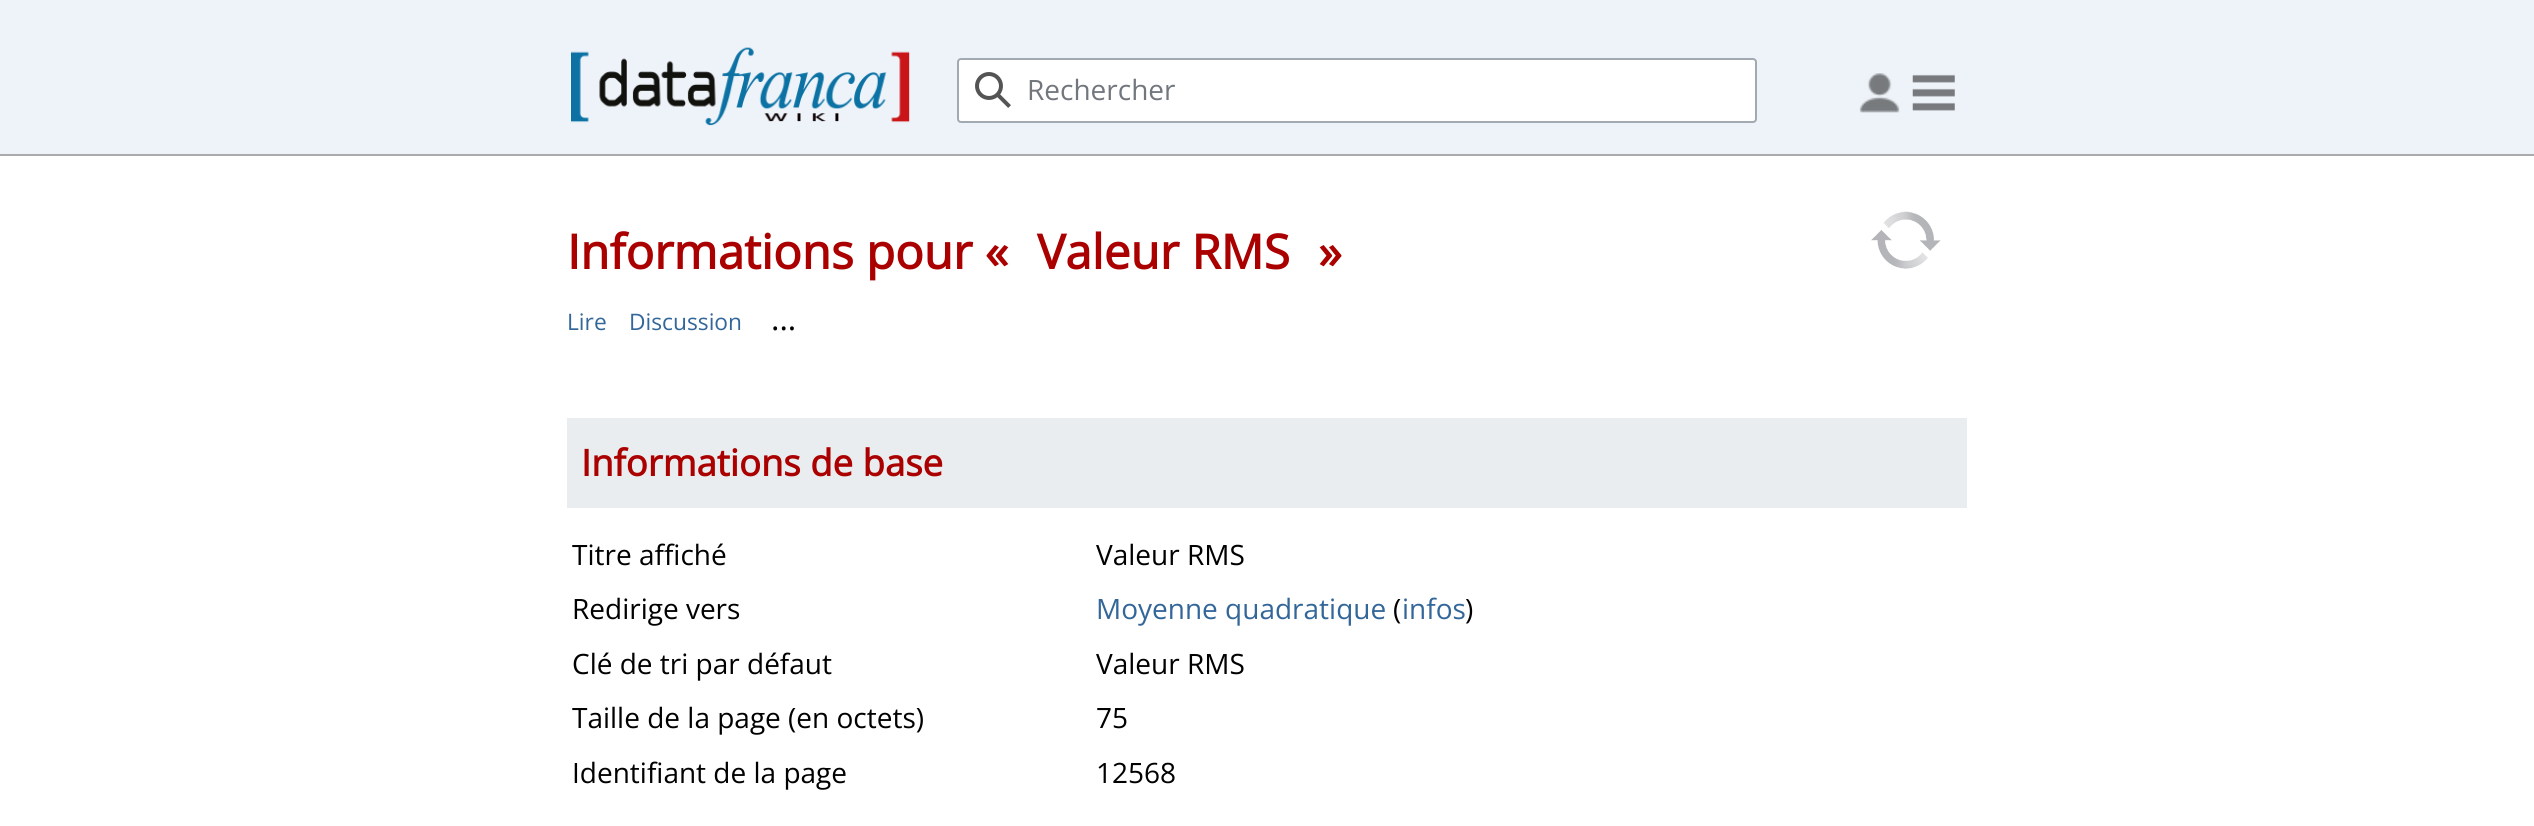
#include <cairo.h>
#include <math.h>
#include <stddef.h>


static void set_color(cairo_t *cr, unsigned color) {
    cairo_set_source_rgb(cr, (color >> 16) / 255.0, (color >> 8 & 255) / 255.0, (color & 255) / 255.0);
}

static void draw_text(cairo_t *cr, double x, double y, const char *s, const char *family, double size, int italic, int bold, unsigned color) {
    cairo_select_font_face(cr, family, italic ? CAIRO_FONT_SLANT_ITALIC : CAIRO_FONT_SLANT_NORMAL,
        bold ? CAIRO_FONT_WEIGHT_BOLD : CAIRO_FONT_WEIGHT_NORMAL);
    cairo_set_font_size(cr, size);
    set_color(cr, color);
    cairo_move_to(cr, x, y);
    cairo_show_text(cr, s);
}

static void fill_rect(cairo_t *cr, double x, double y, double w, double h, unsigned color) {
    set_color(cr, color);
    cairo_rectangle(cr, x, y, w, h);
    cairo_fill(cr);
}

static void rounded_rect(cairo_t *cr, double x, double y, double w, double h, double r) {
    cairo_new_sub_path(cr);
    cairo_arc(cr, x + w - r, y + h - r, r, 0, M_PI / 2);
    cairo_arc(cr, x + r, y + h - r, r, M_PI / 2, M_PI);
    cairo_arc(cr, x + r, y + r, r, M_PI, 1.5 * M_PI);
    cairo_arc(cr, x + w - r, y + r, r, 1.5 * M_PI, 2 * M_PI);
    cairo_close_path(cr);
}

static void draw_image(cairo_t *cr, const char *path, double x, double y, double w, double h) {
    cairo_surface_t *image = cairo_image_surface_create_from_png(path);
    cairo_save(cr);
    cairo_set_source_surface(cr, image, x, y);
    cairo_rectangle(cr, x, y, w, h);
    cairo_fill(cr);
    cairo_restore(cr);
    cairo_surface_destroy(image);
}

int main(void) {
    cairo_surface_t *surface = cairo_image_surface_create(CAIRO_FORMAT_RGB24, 2534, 826);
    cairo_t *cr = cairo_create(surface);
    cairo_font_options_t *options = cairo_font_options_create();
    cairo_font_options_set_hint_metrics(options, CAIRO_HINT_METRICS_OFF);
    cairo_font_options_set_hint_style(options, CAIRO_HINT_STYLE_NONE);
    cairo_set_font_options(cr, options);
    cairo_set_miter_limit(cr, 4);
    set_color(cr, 0xFFFFFF);
    cairo_paint(cr);
    fill_rect(cr, 0, 0, 2534, 154, 0xEEF3FA);
    fill_rect(cr, 0, 154, 2534, 2, 0xAAAAAA);
    draw_image(cr, "assets/img1.png", 571, 47, 339, 79);
    set_color(cr, 0xFFFFFF);
    rounded_rect(cr, 958, 59, 798, 63, 3);
    cairo_fill_preserve(cr);
    set_color(cr, 0xA2A9B1);
    cairo_stroke(cr);
    draw_image(cr, "assets/img2.png", 975, 72, 36, 36);
    draw_text(cr, 1027, 100, "Rechercher", "Open Sans", 28, 0, 0, 0x72777D);
    draw_image(cr, "assets/img3.png", 1859, 73, 41, 40);
    draw_image(cr, "assets/img4.png", 1912, 74, 43, 37);
    draw_text(cr, 567, 269, "Informations pour « Valeur RMS »", "Open Sans", 47.6, 0, 1, 0xAA0000);
    draw_image(cr, "assets/img5.png", 1871, 211, 70, 58);
    draw_text(cr, 567, 330, "Lire", "Open Sans", 22.75, 0, 0, 0x336699);
    draw_text(cr, 629, 330, "Discussion", "Open Sans", 22.75, 0, 0, 0x336699);
    draw_text(cr, 771, 330, "...", "Open Sans", 32, 0, 0, 0x000000);
    fill_rect(cr, 567, 418, 1400, 90, 0xEAEDEF);
    draw_text(cr, 581, 476, "Informations de base", "Open Sans", 36.5, 0, 1, 0xAA0000);
    draw_text(cr, 572, 565, "Titre affiché", "Open Sans", 28, 0, 0, 0x000000);
    draw_text(cr, 1096, 565, "Valeur RMS", "Open Sans", 28, 0, 0, 0x000000);
    draw_text(cr, 572, 619, "Redirige vers", "Open Sans", 28, 0, 0, 0x000000);
    draw_text(cr, 1096, 619, "Moyenne quadratique", "Open Sans", 28, 0, 0, 0x336699);
    draw_text(cr, 1393, 619, "(", "Open Sans", 28, 0, 0, 0x000000);
    draw_text(cr, 1402, 619, "infos", "Open Sans", 28, 0, 0, 0x336699);
    draw_text(cr, 1465, 619, ")", "Open Sans", 28, 0, 0, 0x000000);
    draw_text(cr, 572, 674, "Clé de tri par défaut", "Open Sans", 28, 0, 0, 0x000000);
    draw_text(cr, 1096, 674, "Valeur RMS", "Open Sans", 28, 0, 0, 0x000000);
    draw_text(cr, 572, 728, "Taille de la page (en octets)", "Open Sans", 28, 0, 0, 0x000000);
    draw_text(cr, 1096, 728, "75", "Open Sans", 28, 0, 0, 0x000000);
    draw_text(cr, 572, 783, "Identifiant de la page", "Open Sans", 28, 0, 0, 0x000000);
    draw_text(cr, 1096, 783, "12568", "Open Sans", 28, 0, 0, 0x000000);
    cairo_surface_write_to_png(surface, "output.png");
    cairo_font_options_destroy(options);
    cairo_destroy(cr);
    cairo_surface_destroy(surface);
    return 0;
}
